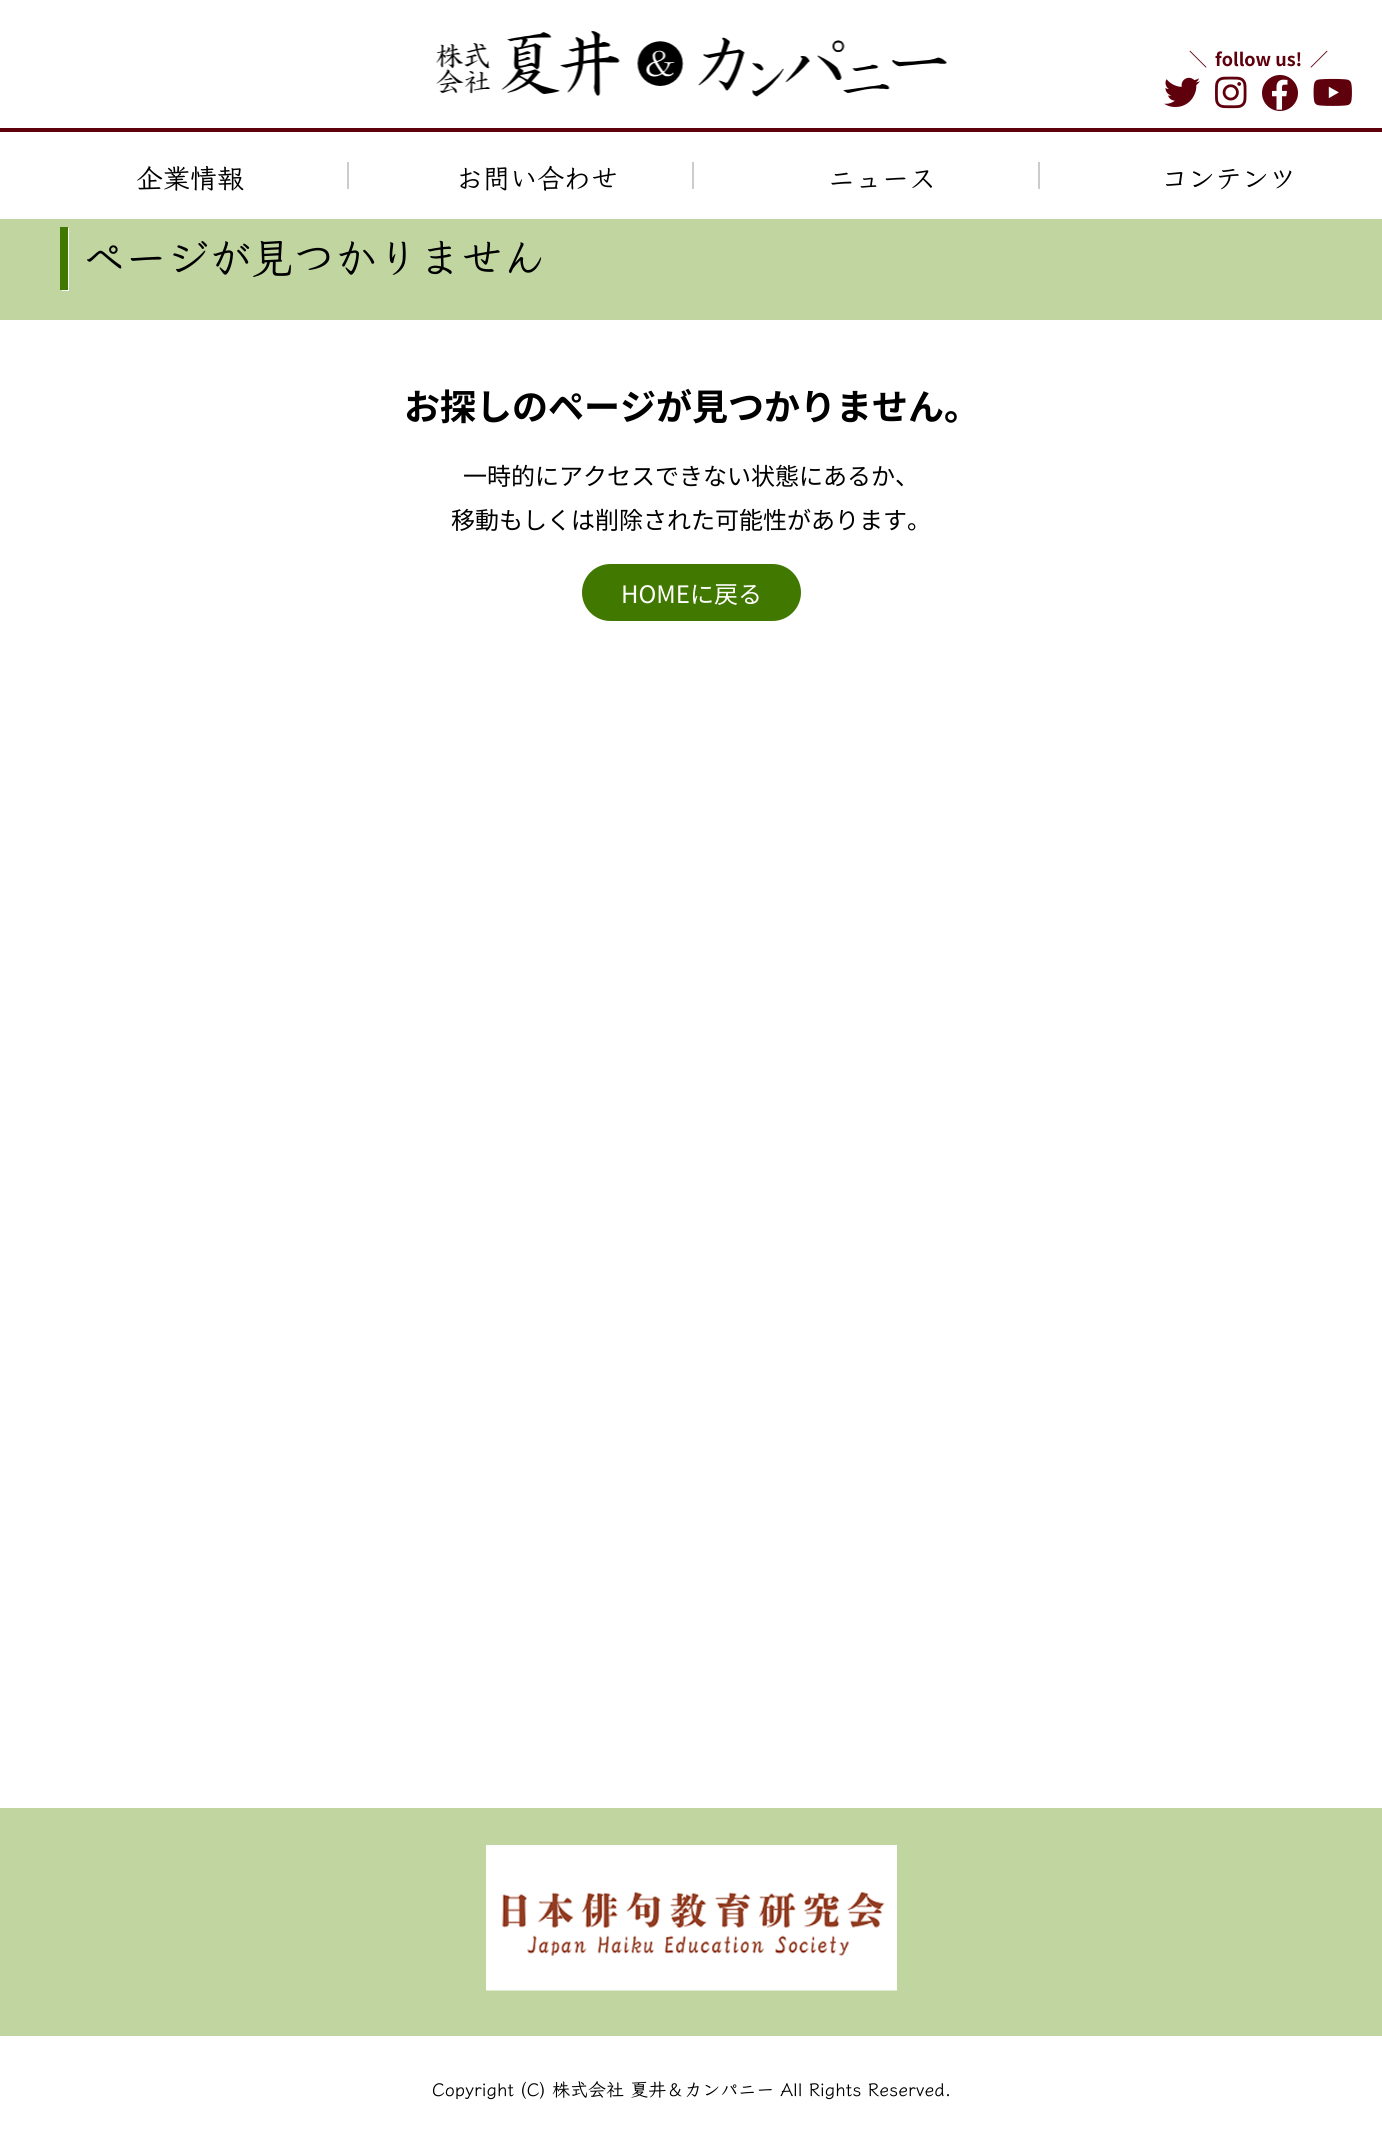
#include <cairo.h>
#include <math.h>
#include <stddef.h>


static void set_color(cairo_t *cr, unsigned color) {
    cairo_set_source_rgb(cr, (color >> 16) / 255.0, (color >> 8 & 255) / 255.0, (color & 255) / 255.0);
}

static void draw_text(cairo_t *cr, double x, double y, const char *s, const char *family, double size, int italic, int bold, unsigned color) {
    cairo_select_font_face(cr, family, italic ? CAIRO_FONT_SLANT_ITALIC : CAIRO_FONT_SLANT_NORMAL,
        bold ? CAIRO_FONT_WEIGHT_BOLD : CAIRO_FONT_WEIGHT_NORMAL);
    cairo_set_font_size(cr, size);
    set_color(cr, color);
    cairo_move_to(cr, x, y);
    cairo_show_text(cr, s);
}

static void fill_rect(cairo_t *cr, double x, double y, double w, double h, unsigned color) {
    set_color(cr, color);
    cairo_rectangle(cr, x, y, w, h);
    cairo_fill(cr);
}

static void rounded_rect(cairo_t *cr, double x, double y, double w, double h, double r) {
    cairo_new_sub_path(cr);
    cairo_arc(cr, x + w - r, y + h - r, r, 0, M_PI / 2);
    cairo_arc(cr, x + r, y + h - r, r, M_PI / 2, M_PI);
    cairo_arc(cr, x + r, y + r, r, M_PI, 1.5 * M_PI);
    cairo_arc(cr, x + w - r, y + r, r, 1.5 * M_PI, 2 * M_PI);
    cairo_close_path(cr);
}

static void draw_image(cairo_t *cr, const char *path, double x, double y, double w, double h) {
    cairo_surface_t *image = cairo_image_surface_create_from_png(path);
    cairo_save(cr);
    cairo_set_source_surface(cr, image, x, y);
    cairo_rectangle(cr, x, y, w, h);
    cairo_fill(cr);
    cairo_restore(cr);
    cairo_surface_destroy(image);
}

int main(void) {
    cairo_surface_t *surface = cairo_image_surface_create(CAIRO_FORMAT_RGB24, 1382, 2140);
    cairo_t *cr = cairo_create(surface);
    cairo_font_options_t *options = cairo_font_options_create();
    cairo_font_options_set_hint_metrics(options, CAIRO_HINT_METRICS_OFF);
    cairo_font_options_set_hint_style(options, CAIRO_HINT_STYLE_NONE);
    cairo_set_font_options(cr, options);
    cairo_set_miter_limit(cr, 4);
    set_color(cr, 0xFFFFFF);
    cairo_paint(cr);
    draw_image(cr, "assets/img1.png", 436, 31, 511, 66);
    fill_rect(cr, 0, 128, 1382, 4, 0x5F000D);
    draw_text(cr, 1189, 66, "＼", "Noto Sans JP", 18, 0, 1, 0x5F000D);
    draw_text(cr, 1215, 66, "follow us!", "Noto Sans JP", 18, 0, 1, 0x5F000D);
    draw_text(cr, 1310, 66, "／", "Noto Sans JP", 18, 0, 1, 0x5F000D);
    draw_image(cr, "assets/img2.png", 1164, 77, 36, 30);
    draw_image(cr, "assets/img3.png", 1215, 76, 32, 33);
    cairo_arc(cr, 1280, 93, 18, 0, 2 * M_PI);
    cairo_fill(cr);
    draw_image(cr, "assets/img4.png", 1272, 79, 16, 31);
    draw_image(cr, "assets/img5.png", 1313, 78, 39, 28);
    draw_text(cr, 136, 188, "企業情報", "Klee One SemiBold", 27, 0, 0, 0x000000);
    fill_rect(cr, 347, 162, 2, 27, 0xCCCCCC);
    draw_text(cr, 456, 188, "お問い合わせ", "Klee One SemiBold", 27, 0, 0, 0x000000);
    fill_rect(cr, 692, 162, 2, 27, 0xCCCCCC);
    draw_text(cr, 828, 188, "ニュース", "Klee One SemiBold", 27, 0, 0, 0x000000);
    fill_rect(cr, 1038, 162, 2, 27, 0xCCCCCC);
    draw_text(cr, 1161, 188, "コンテンツ", "Klee One SemiBold", 27, 0, 0, 0x000000);
    fill_rect(cr, 0, 219, 1382, 101, 0xC1D5A0);
    set_color(cr, 0xFFFFFF);
    cairo_new_path(cr);
    cairo_move_to(cr, 62, 290);
    cairo_line_to(cr, 62, 291);
    cairo_line_to(cr, 69, 291);
    cairo_line_to(cr, 69, 228);
    cairo_line_to(cr, 68, 228);
    cairo_line_to(cr, 68, 290);
    cairo_close_path(cr);
    cairo_fill(cr);
    fill_rect(cr, 60, 227, 8, 63, 0x417800);
    draw_text(cr, 83, 273, "ページが見つかりません", "Klee One SemiBold", 42, 0, 0, 0x000000);
    draw_text(cr, 404, 420, "お探しのページが見つかりません。", "Noto Sans JP", 36, 0, 1, 0x000000);
    draw_text(cr, 463, 485, "一時的にアクセスできない状態にあるか、", "Noto Sans JP", 24, 0, 0, 0x000000);
    draw_text(cr, 451, 529, "移動もしくは削除された可能性があります。", "Noto Sans JP", 24, 0, 0, 0x000000);
    set_color(cr, 0x417800);
    rounded_rect(cr, 583, 565, 217, 55, 27.5);
    cairo_fill_preserve(cr);
    cairo_stroke(cr);
    draw_text(cr, 621, 603, "HOMEに戻る", "Noto Sans JP", 24, 0, 0, 0xFFFFFF);
    fill_rect(cr, 0, 1808, 1382, 228, 0xC1D5A0);
    draw_image(cr, "assets/img6.png", 486, 1845, 411, 146);
    draw_text(cr, 432, 2096, "Copyright (C) 株式会社 夏井＆カンパニー All Rights Reserved.", "Klee One SemiBold", 18, 0, 0, 0x000000);
    cairo_surface_write_to_png(surface, "output.png");
    cairo_font_options_destroy(options);
    cairo_destroy(cr);
    cairo_surface_destroy(surface);
    return 0;
}
